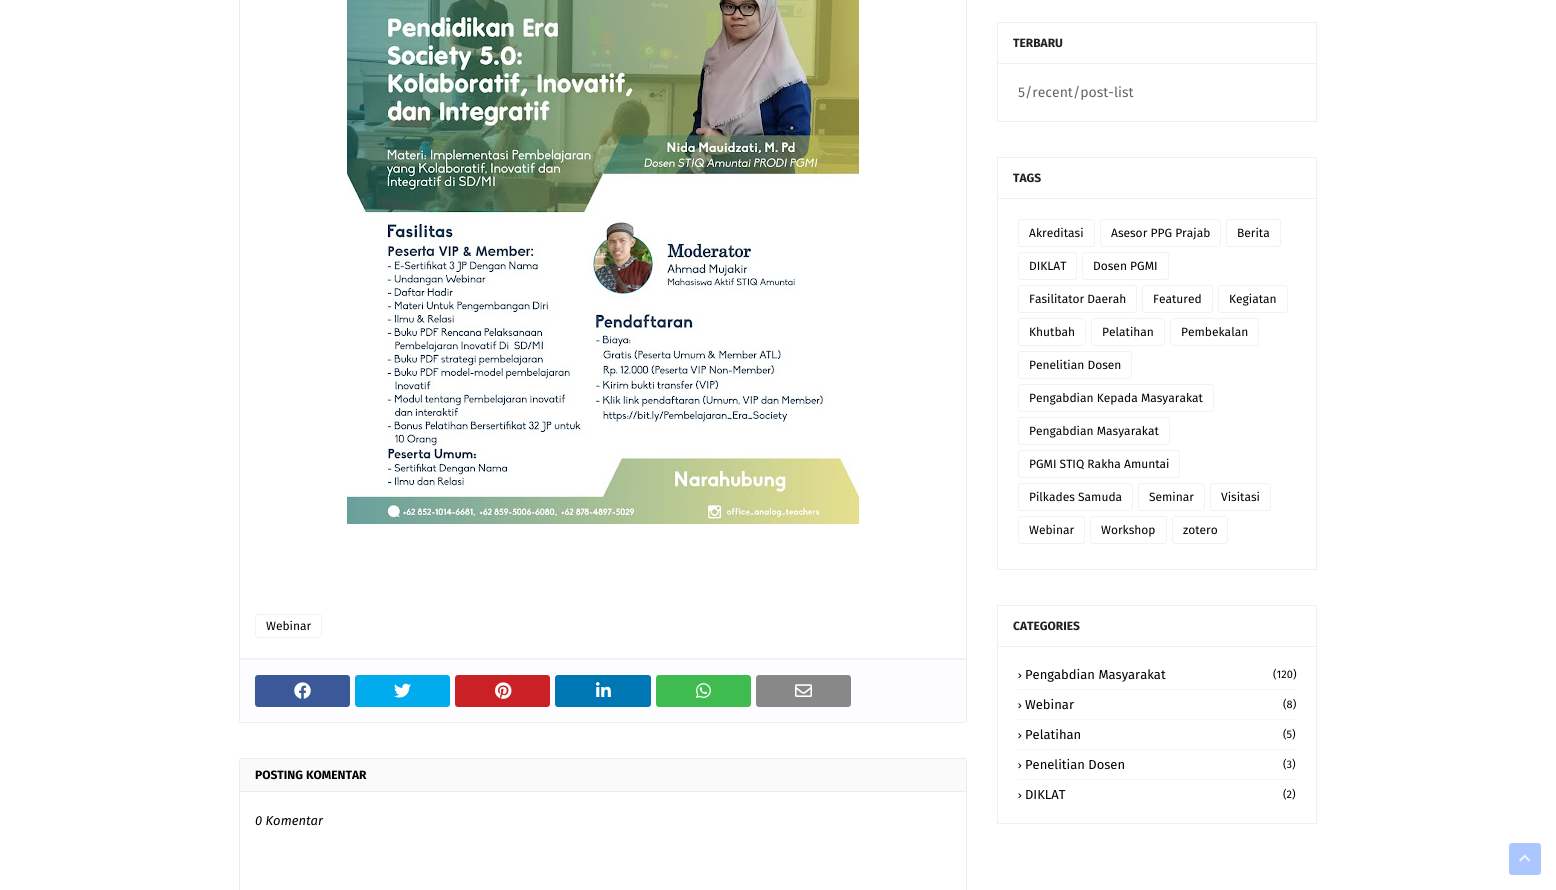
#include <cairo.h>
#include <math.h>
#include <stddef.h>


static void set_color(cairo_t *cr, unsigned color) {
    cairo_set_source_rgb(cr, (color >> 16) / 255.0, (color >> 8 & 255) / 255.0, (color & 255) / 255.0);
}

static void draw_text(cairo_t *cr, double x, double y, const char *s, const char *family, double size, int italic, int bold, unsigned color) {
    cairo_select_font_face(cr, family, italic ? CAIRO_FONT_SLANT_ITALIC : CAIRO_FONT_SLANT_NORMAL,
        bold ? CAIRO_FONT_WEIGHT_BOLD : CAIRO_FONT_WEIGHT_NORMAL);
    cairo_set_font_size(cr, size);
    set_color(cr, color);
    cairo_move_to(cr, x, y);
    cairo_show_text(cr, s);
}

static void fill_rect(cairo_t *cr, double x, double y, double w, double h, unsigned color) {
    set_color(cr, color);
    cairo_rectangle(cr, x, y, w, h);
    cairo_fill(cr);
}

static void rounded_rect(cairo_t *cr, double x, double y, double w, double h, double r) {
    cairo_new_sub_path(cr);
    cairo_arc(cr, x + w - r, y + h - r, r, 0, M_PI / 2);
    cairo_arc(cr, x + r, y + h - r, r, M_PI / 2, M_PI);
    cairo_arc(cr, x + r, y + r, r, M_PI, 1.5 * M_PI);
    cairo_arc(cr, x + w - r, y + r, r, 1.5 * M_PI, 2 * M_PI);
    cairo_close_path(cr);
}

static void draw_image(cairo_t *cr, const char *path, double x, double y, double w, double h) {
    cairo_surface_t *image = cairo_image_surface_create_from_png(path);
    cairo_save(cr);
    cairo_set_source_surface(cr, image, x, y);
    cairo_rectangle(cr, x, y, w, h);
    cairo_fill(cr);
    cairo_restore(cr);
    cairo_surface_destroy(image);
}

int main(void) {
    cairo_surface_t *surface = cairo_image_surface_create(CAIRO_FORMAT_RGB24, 1556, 890);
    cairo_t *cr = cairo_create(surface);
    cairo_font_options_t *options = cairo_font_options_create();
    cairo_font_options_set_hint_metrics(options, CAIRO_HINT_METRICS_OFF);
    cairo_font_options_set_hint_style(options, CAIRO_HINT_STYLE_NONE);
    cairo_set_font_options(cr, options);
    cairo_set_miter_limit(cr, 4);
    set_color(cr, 0xFFFFFF);
    cairo_paint(cr);
    rounded_rect(cr, 239.5, -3.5, 727, 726, 2.5);
    set_color(cr, 0xEBEBF3);
    cairo_set_line_width(cr, 1);
    cairo_stroke(cr);
    draw_image(cr, "assets/img1.png", 347, 0, 512, 524);
    rounded_rect(cr, 255.5, 614.5, 66, 23, 2.5);
    set_color(cr, 0xF2F2F6);
    cairo_stroke(cr);
    draw_text(cr, 266, 630, "Webinar", "Fira Sans", 12, 0, 0, 0x000000);
    set_color(cr, 0xFDFDFF);
    cairo_new_path(cr);
    cairo_move_to(cr, 240, 658);
    cairo_line_to(cr, 966, 658);
    cairo_line_to(cr, 966, 720);
    cairo_curve_to(cr, 966, 721, 965, 722, 964, 722);
    cairo_line_to(cr, 242, 722);
    cairo_curve_to(cr, 241, 722, 240, 721, 240, 720);
    cairo_close_path(cr);
    cairo_fill(cr);
    fill_rect(cr, 240, 658, 726, 2, 0xF2F2F6);
    set_color(cr, 0x3B5999);
    rounded_rect(cr, 255, 675, 95, 32, 3);
    cairo_fill(cr);
    draw_image(cr, "assets/img2.png", 294, 682, 17, 17);
    set_color(cr, 0x00ACEE);
    rounded_rect(cr, 355, 675, 95, 32, 3);
    cairo_fill(cr);
    draw_image(cr, "assets/img3.png", 394, 683, 17, 15);
    set_color(cr, 0xCA2127);
    rounded_rect(cr, 455, 675, 95, 32, 3);
    cairo_fill(cr);
    draw_image(cr, "assets/img4.png", 495, 682, 17, 17);
    set_color(cr, 0x0077B5);
    rounded_rect(cr, 555, 675, 96, 32, 3);
    cairo_fill(cr);
    draw_image(cr, "assets/img5.png", 596, 682, 15, 15);
    set_color(cr, 0x3FBB50);
    rounded_rect(cr, 656, 675, 95, 32, 3);
    cairo_fill(cr);
    draw_image(cr, "assets/img6.png", 696, 683, 15, 15);
    set_color(cr, 0x888888);
    rounded_rect(cr, 756, 675, 95, 32, 3);
    cairo_fill(cr);
    draw_image(cr, "assets/img7.png", 795, 684, 17, 13);
    rounded_rect(cr, 239.5, 758.5, 727, 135, 2.5);
    set_color(cr, 0xEBEBF3);
    cairo_stroke(cr);
    set_color(cr, 0xFAFAFA);
    cairo_new_path(cr);
    cairo_move_to(cr, 242, 759);
    cairo_line_to(cr, 964, 759);
    cairo_curve_to(cr, 965, 759, 966, 760, 966, 761);
    cairo_line_to(cr, 966, 792);
    cairo_line_to(cr, 240, 792);
    cairo_line_to(cr, 240, 761);
    cairo_curve_to(cr, 240, 760, 241, 759, 242, 759);
    cairo_close_path(cr);
    cairo_fill(cr);
    fill_rect(cr, 240, 791, 726, 1, 0xECECEC);
    draw_text(cr, 255, 779, "POSTING KOMENTAR", "Fira Sans", 12, 0, 1, 0x000000);
    draw_text(cr, 255, 825, "0 Komentar", "Fira Sans", 13, 1, 0, 0x000000);
    cairo_rectangle(cr, 997.5, 22.5, 319, 99);
    set_color(cr, 0xF0F0F0);
    cairo_stroke(cr);
    fill_rect(cr, 998, 63, 318, 1, 0xF0F0F0);
    draw_text(cr, 1013, 47, "TERBARU", "Fira Sans", 12, 0, 1, 0x1F2024);
    draw_text(cr, 1018, 97, "5/recent/post-list", "Fira Sans", 14, 0, 0, 0x656565);
    cairo_rectangle(cr, 997.5, 157.5, 319, 412);
    set_color(cr, 0xF0F0F0);
    cairo_stroke(cr);
    fill_rect(cr, 998, 198, 318, 1, 0xF0F0F0);
    draw_text(cr, 1013, 182, "TAGS", "Fira Sans", 12, 0, 1, 0x1F2024);
    rounded_rect(cr, 1018.5, 219.5, 76, 27, 2.5);
    set_color(cr, 0xF2F2F6);
    cairo_stroke(cr);
    draw_text(cr, 1029, 237, "Akreditasi", "Fira Sans", 12, 0, 0, 0x000000);
    rounded_rect(cr, 1100.5, 219.5, 120, 27, 2.5);
    set_color(cr, 0xF2F2F6);
    cairo_stroke(cr);
    draw_text(cr, 1111, 237, "Asesor PPG Prajab", "Fira Sans", 12, 0, 0, 0x000000);
    rounded_rect(cr, 1226.5, 219.5, 54, 27, 2.5);
    set_color(cr, 0xF2F2F6);
    cairo_stroke(cr);
    draw_text(cr, 1237, 237, "Berita", "Fira Sans", 12, 0, 0, 0x000000);
    rounded_rect(cr, 1018.5, 252.5, 58, 27, 2.5);
    set_color(cr, 0xF2F2F6);
    cairo_stroke(cr);
    draw_text(cr, 1029, 270, "DIKLAT", "Fira Sans", 12, 0, 0, 0x000000);
    rounded_rect(cr, 1082.5, 252.5, 86, 27, 2.5);
    set_color(cr, 0xF2F2F6);
    cairo_stroke(cr);
    draw_text(cr, 1093, 270, "Dosen PGMI", "Fira Sans", 12, 0, 0, 0x000000);
    rounded_rect(cr, 1018.5, 285.5, 118, 27, 2.5);
    set_color(cr, 0xF2F2F6);
    cairo_stroke(cr);
    draw_text(cr, 1029, 303, "Fasilitator Daerah", "Fira Sans", 12, 0, 0, 0x000000);
    rounded_rect(cr, 1142.5, 285.5, 70, 27, 2.5);
    set_color(cr, 0xF2F2F6);
    cairo_stroke(cr);
    draw_text(cr, 1153, 303, "Featured", "Fira Sans", 12, 0, 0, 0x000000);
    rounded_rect(cr, 1218.5, 285.5, 69, 27, 2.5);
    set_color(cr, 0xF2F2F6);
    cairo_stroke(cr);
    draw_text(cr, 1229, 303, "Kegiatan", "Fira Sans", 12, 0, 0, 0x000000);
    rounded_rect(cr, 1018.5, 318.5, 67, 27, 2.5);
    set_color(cr, 0xF2F2F6);
    cairo_stroke(cr);
    draw_text(cr, 1029, 336, "Khutbah", "Fira Sans", 12, 0, 0, 0x000000);
    rounded_rect(cr, 1091.5, 318.5, 73, 27, 2.5);
    set_color(cr, 0xF2F2F6);
    cairo_stroke(cr);
    draw_text(cr, 1102, 336, "Pelatihan", "Fira Sans", 12, 0, 0, 0x000000);
    rounded_rect(cr, 1170.5, 318.5, 88, 27, 2.5);
    set_color(cr, 0xF2F2F6);
    cairo_stroke(cr);
    draw_text(cr, 1181, 336, "Pembekalan", "Fira Sans", 12, 0, 0, 0x000000);
    rounded_rect(cr, 1018.5, 351.5, 113, 27, 2.5);
    set_color(cr, 0xF2F2F6);
    cairo_stroke(cr);
    draw_text(cr, 1029, 369, "Penelitian Dosen", "Fira Sans", 12, 0, 0, 0x000000);
    rounded_rect(cr, 1018.5, 384.5, 195, 27, 2.5);
    set_color(cr, 0xF2F2F6);
    cairo_stroke(cr);
    draw_text(cr, 1029, 402, "Pengabdian Kepada Masyarakat", "Fira Sans", 12, 0, 0, 0x000000);
    rounded_rect(cr, 1018.5, 417.5, 151, 27, 2.5);
    set_color(cr, 0xF2F2F6);
    cairo_stroke(cr);
    draw_text(cr, 1029, 435, "Pengabdian Masyarakat", "Fira Sans", 12, 0, 0, 0x000000);
    rounded_rect(cr, 1018.5, 450.5, 161, 27, 2.5);
    set_color(cr, 0xF2F2F6);
    cairo_stroke(cr);
    draw_text(cr, 1029, 468, "PGMI STIQ Rakha Amuntai", "Fira Sans", 12, 0, 0, 0x000000);
    rounded_rect(cr, 1018.5, 483.5, 114, 27, 2.5);
    set_color(cr, 0xF2F2F6);
    cairo_stroke(cr);
    draw_text(cr, 1029, 501, "Pilkades Samuda", "Fira Sans", 12, 0, 0, 0x000000);
    rounded_rect(cr, 1138.5, 483.5, 66, 27, 2.5);
    set_color(cr, 0xF2F2F6);
    cairo_stroke(cr);
    draw_text(cr, 1149, 501, "Seminar", "Fira Sans", 12, 0, 0, 0x000000);
    rounded_rect(cr, 1210.5, 483.5, 60, 27, 2.5);
    set_color(cr, 0xF2F2F6);
    cairo_stroke(cr);
    draw_text(cr, 1221, 501, "Visitasi", "Fira Sans", 12, 0, 0, 0x000000);
    rounded_rect(cr, 1018.5, 516.5, 66, 27, 2.5);
    set_color(cr, 0xF2F2F6);
    cairo_stroke(cr);
    draw_text(cr, 1029, 534, "Webinar", "Fira Sans", 12, 0, 0, 0x000000);
    rounded_rect(cr, 1090.5, 516.5, 76, 27, 2.5);
    set_color(cr, 0xF2F2F6);
    cairo_stroke(cr);
    draw_text(cr, 1101, 534, "Workshop", "Fira Sans", 12, 0, 0, 0x000000);
    rounded_rect(cr, 1172.5, 516.5, 55, 27, 2.5);
    set_color(cr, 0xF2F2F6);
    cairo_stroke(cr);
    draw_text(cr, 1183, 534, "zotero", "Fira Sans", 12, 0, 0, 0x000000);
    cairo_rectangle(cr, 997.5, 605.5, 319, 218);
    set_color(cr, 0xF0F0F0);
    cairo_stroke(cr);
    fill_rect(cr, 998, 646, 318, 1, 0xF0F0F0);
    draw_text(cr, 1013, 630, "CATEGORIES", "Fira Sans", 12, 0, 1, 0x1F2024);
    draw_image(cr, "assets/img8.png", 1018, 673, 4, 6);
    draw_text(cr, 1025, 679, "Pengabdian Masyarakat", "Fira Sans", 13, 0, 0, 0x000000);
    draw_text(cr, 1273, 678, "(120)", "Fira Sans", 11, 0, 0, 0x000000);
    cairo_new_path(cr);
    cairo_move_to(cr, 1018, 689.5);
    cairo_line_to(cr, 1296, 689.5);
    set_color(cr, 0xEBEBF3);
    cairo_set_dash(cr, (double[]){1, 1}, 2, 0);
    cairo_stroke(cr);
    draw_image(cr, "assets/img8.png", 1018, 703, 4, 6);
    draw_text(cr, 1025, 709, "Webinar", "Fira Sans", 13, 0, 0, 0x000000);
    draw_text(cr, 1283, 708, "(8)", "Fira Sans", 11, 0, 0, 0x000000);
    cairo_new_path(cr);
    cairo_move_to(cr, 1018, 719.5);
    cairo_line_to(cr, 1296, 719.5);
    set_color(cr, 0xEBEBF3);
    cairo_stroke(cr);
    draw_image(cr, "assets/img8.png", 1018, 733, 4, 6);
    draw_text(cr, 1025, 739, "Pelatihan", "Fira Sans", 13, 0, 0, 0x000000);
    draw_text(cr, 1283, 738, "(5)", "Fira Sans", 11, 0, 0, 0x000000);
    cairo_new_path(cr);
    cairo_move_to(cr, 1018, 749.5);
    cairo_line_to(cr, 1296, 749.5);
    set_color(cr, 0xEBEBF3);
    cairo_stroke(cr);
    draw_image(cr, "assets/img8.png", 1018, 763, 4, 6);
    draw_text(cr, 1025, 769, "Penelitian Dosen", "Fira Sans", 13, 0, 0, 0x000000);
    draw_text(cr, 1283, 768, "(3)", "Fira Sans", 11, 0, 0, 0x000000);
    cairo_new_path(cr);
    cairo_move_to(cr, 1018, 779.5);
    cairo_line_to(cr, 1296, 779.5);
    set_color(cr, 0xEBEBF3);
    cairo_stroke(cr);
    draw_image(cr, "assets/img8.png", 1018, 793, 4, 6);
    draw_text(cr, 1025, 799, "DIKLAT", "Fira Sans", 13, 0, 0, 0x000000);
    draw_text(cr, 1283, 798, "(2)", "Fira Sans", 11, 0, 0, 0x000000);
    set_color(cr, 0xACC6FF);
    rounded_rect(cr, 1509, 843, 32, 32, 3);
    cairo_fill(cr);
    draw_image(cr, "assets/img9.png", 1519, 854, 12, 8);
    cairo_surface_write_to_png(surface, "output.png");
    cairo_font_options_destroy(options);
    cairo_destroy(cr);
    cairo_surface_destroy(surface);
    return 0;
}
